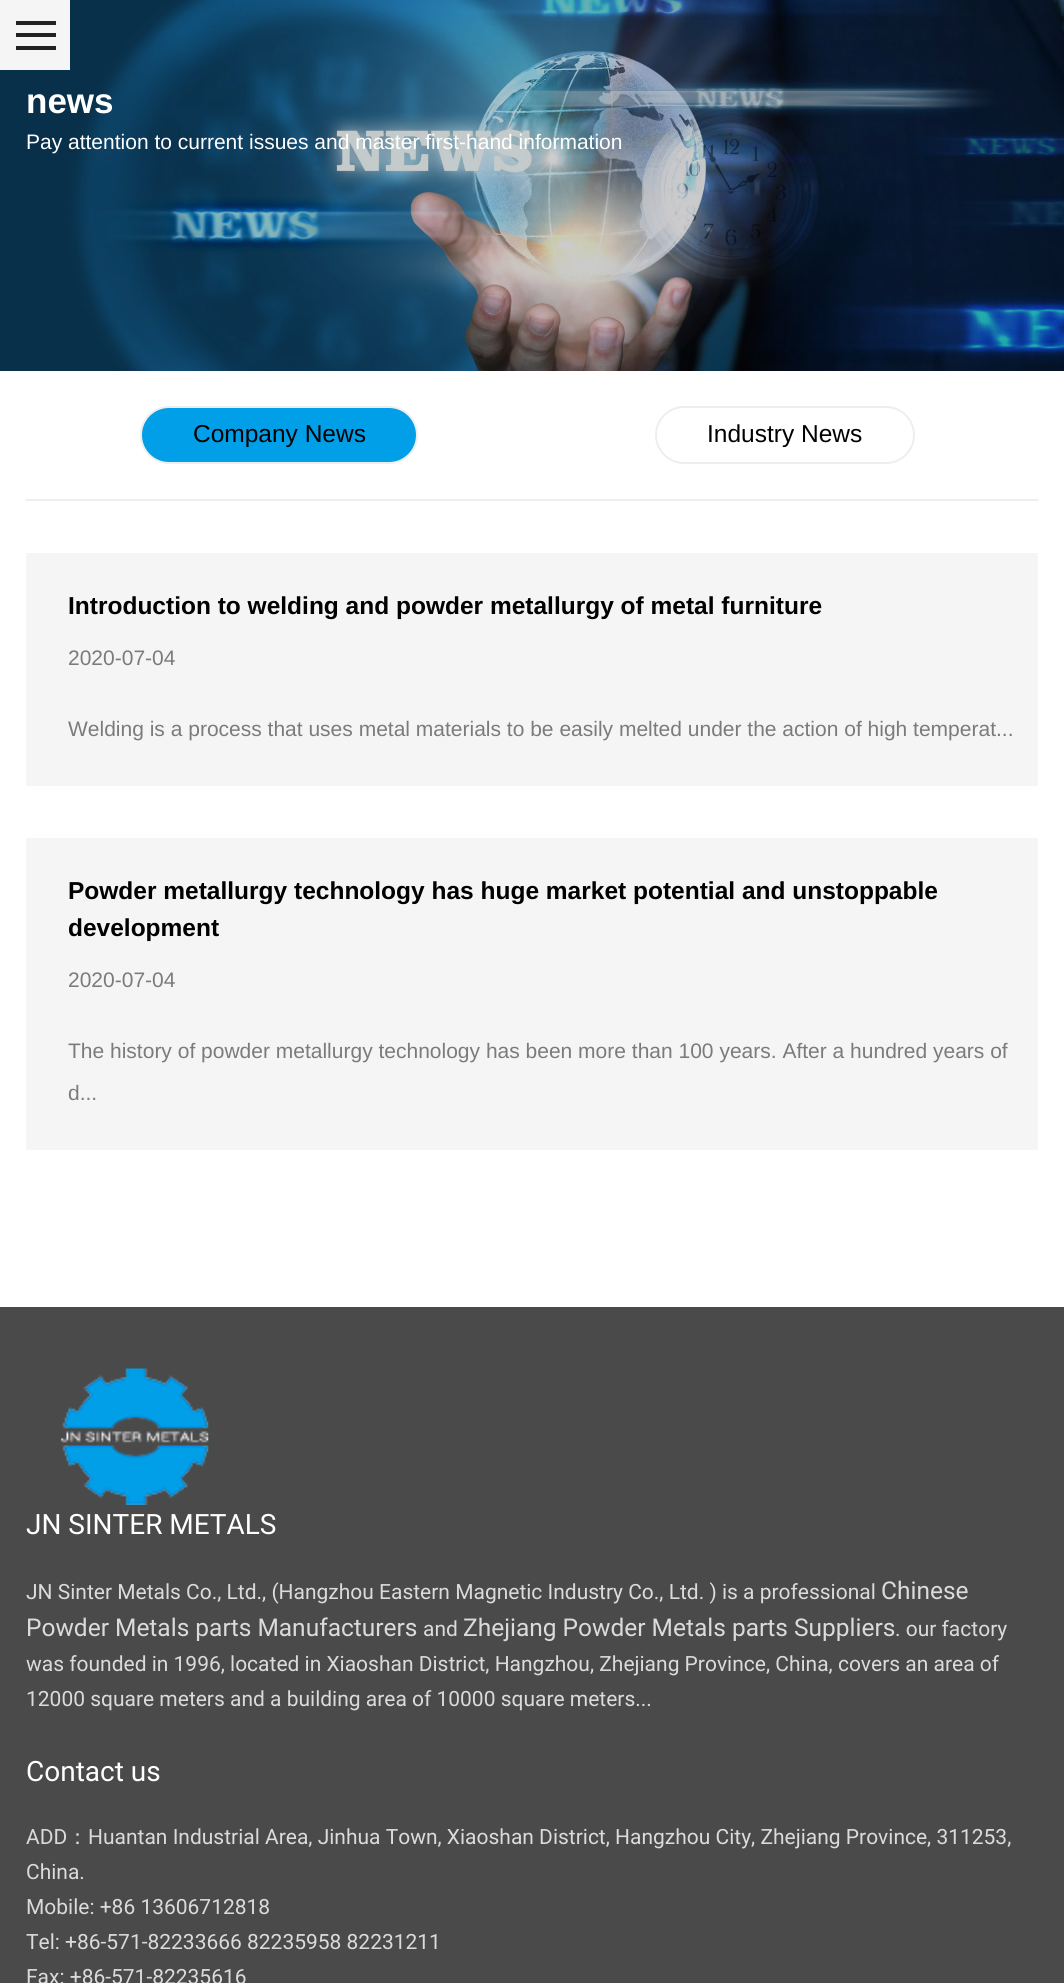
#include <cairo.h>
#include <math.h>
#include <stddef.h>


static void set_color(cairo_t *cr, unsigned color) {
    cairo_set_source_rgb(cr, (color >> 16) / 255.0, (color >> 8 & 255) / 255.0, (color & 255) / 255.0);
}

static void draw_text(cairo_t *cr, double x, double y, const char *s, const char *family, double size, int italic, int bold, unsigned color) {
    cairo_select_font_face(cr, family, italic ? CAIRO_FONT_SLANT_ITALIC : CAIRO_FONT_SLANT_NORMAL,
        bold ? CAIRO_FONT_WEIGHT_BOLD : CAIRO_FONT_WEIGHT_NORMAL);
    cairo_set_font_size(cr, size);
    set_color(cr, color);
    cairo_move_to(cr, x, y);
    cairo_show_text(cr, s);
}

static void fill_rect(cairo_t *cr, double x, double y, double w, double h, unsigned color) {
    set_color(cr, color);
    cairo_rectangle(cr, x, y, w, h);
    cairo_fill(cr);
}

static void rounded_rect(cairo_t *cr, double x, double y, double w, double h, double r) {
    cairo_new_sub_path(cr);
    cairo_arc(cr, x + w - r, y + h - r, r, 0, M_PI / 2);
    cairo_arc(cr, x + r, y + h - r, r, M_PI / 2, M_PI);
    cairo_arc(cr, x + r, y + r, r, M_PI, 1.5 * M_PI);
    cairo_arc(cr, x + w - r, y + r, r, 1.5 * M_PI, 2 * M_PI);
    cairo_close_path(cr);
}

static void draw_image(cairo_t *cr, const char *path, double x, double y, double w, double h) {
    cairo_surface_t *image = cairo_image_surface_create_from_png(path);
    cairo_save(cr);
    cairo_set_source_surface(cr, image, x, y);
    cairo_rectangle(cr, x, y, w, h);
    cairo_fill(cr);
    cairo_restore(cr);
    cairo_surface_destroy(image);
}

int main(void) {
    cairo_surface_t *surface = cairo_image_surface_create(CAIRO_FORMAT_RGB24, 1064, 1983);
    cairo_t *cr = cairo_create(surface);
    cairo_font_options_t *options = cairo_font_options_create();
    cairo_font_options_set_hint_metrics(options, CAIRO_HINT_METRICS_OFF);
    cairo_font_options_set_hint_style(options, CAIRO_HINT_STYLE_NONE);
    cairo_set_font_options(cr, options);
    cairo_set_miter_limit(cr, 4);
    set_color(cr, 0xFFFFFF);
    cairo_paint(cr);
    draw_image(cr, "assets/img1.png", 0, 0, 1064, 371);
    fill_rect(cr, 0, 0, 70, 70, 0xF5F5F5);
    fill_rect(cr, 16, 21, 40, 4, 0x222222);
    fill_rect(cr, 16, 33, 40, 4, 0x222222);
    fill_rect(cr, 16, 46, 40, 4, 0x222222);
    draw_text(cr, 26, 113, "news", "Liberation Sans", 35, 0, 1, 0xFFFFFF);
    draw_text(cr, 26, 149, "Pay attention to current issues and master first-hand information", "Liberation Sans", 21, 0, 0, 0xFFFFFF);
    fill_rect(cr, 26, 499, 1012, 2, 0xEEEEEE);
    set_color(cr, 0x019FE8);
    rounded_rect(cr, 141, 407, 276, 56, 28);
    cairo_fill_preserve(cr);
    set_color(cr, 0xEEEEEE);
    cairo_stroke(cr);
    draw_text(cr, 193, 442, "Company News", "Liberation Sans", 24.5, 0, 0, 0x000000);
    rounded_rect(cr, 656, 407, 258, 56, 28);
    set_color(cr, 0xEEEEEE);
    cairo_stroke(cr);
    draw_text(cr, 707, 442, "Industry News", "Liberation Sans", 24.5, 0, 0, 0x000000);
    fill_rect(cr, 26, 553, 1012, 233, 0xF5F5F5);
    draw_text(cr, 68, 614, "Introduction to welding and powder metallurgy of metal furniture", "Liberation Sans", 24.5, 0, 1, 0x000000);
    draw_text(cr, 68, 665, "2020-07-04", "Liberation Sans", 21, 0, 0, 0x7B7B7B);
    draw_text(cr, 68, 736, "Welding is a process that uses metal materials to be easily melted under the action of high temperat...", "Liberation Sans", 21, 0, 0, 0x7B7B7B);
    fill_rect(cr, 26, 838, 1012, 312, 0xF5F5F5);
    draw_text(cr, 68, 899, "Powder metallurgy technology has huge market potential and unstoppable", "Liberation Sans", 24.5, 0, 1, 0x000000);
    draw_text(cr, 68, 936, "development", "Liberation Sans", 24.5, 0, 1, 0x000000);
    draw_text(cr, 68, 987, "2020-07-04", "Liberation Sans", 21, 0, 0, 0x7B7B7B);
    draw_text(cr, 68, 1058, "The history of powder metallurgy technology has been more than 100 years. After a hundred years of", "Liberation Sans", 21, 0, 0, 0x7B7B7B);
    draw_text(cr, 68, 1100, "d...", "Liberation Sans", 21, 0, 0, 0x7B7B7B);
    fill_rect(cr, 0, 1307, 1064, 676, 0x4A4A4A);
    draw_image(cr, "assets/img2.png", 61, 1368, 148, 137);
    draw_text(cr, 26, 1534, "JN SINTER METALS", "Roboto", 28, 0, 0, 0xFFFFFF);
    draw_text(cr, 26, 1599, "JN Sinter Metals Co., Ltd., (Hangzhou Eastern Magnetic Industry Co., Ltd. ) is a professional", "Roboto", 21, 0, 0, 0xDBDBDB);
    draw_text(cr, 881, 1599, "Chinese", "Roboto", 24.5, 0, 0, 0xDBDBDB);
    draw_text(cr, 26, 1636, "Powder Metals parts Manufacturers", "Roboto", 24.5, 0, 0, 0xDBDBDB);
    draw_text(cr, 423, 1636, "and", "Roboto", 21, 0, 0, 0xDBDBDB);
    draw_text(cr, 463, 1636, "Zhejiang Powder Metals parts Suppliers", "Roboto", 24.5, 0, 0, 0xDBDBDB);
    draw_text(cr, 895, 1636, ". our factory", "Roboto", 21, 0, 0, 0xDBDBDB);
    draw_text(cr, 26, 1671, "was founded in 1996, located in Xiaoshan District, Hangzhou, Zhejiang Province, China, covers an area of", "Roboto", 21, 0, 0, 0xDBDBDB);
    draw_text(cr, 26, 1706, "12000 square meters and a building area of 10000 square meters...", "Roboto", 21, 0, 0, 0xDBDBDB);
    draw_text(cr, 26, 1781, "Contact us", "Roboto", 28, 0, 0, 0xFFFFFF);
    draw_text(cr, 26, 1844, "ADD", "Roboto", 21, 0, 0, 0xDBDBDB);
    draw_text(cr, 67, 1844, "：", "WenQuanYi Zen Hei Medium", 21, 0, 0, 0xDBDBDB);
    draw_text(cr, 88, 1844, "Huantan Industrial Area, Jinhua Town, Xiaoshan District, Hangzhou City, Zhejiang Province, 311253,", "Roboto", 21, 0, 0, 0xDBDBDB);
    draw_text(cr, 26, 1879, "China.", "Roboto", 21, 0, 0, 0xDBDBDB);
    draw_text(cr, 26, 1914, "Mobile: +86 13606712818", "Roboto", 21, 0, 0, 0xDBDBDB);
    draw_text(cr, 26, 1949, "Tel: +86-571-82233666 82235958 82231211", "Roboto", 21, 0, 0, 0xDBDBDB);
    draw_text(cr, 26, 1984, "Fax: +86-571-82235616", "Roboto", 21, 0, 0, 0xDBDBDB);
    cairo_surface_write_to_png(surface, "output.png");
    cairo_font_options_destroy(options);
    cairo_destroy(cr);
    cairo_surface_destroy(surface);
    return 0;
}
